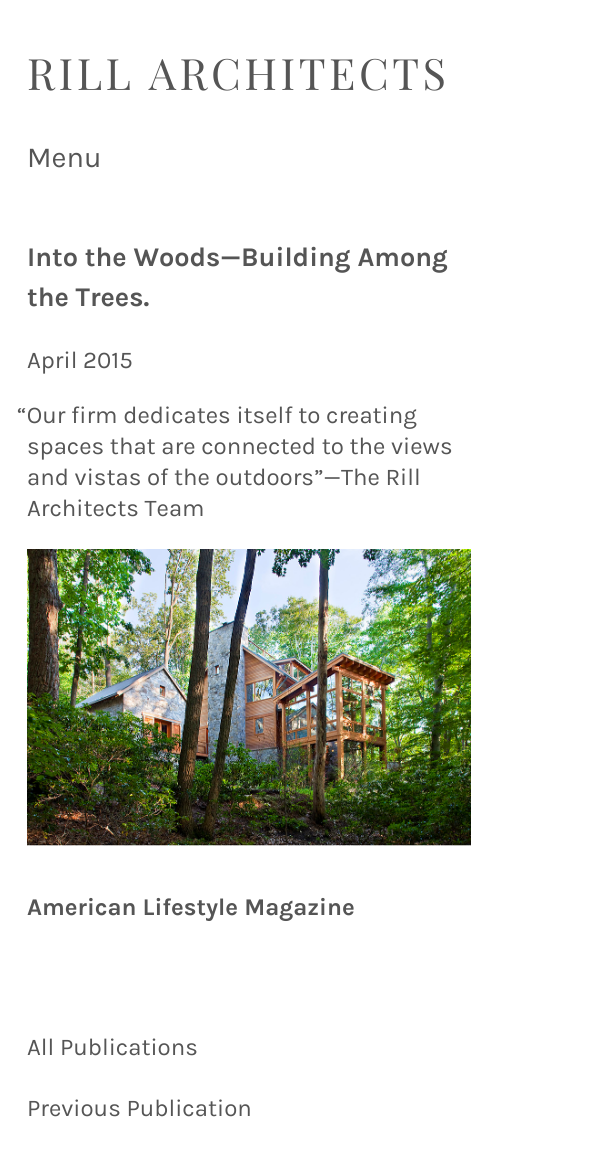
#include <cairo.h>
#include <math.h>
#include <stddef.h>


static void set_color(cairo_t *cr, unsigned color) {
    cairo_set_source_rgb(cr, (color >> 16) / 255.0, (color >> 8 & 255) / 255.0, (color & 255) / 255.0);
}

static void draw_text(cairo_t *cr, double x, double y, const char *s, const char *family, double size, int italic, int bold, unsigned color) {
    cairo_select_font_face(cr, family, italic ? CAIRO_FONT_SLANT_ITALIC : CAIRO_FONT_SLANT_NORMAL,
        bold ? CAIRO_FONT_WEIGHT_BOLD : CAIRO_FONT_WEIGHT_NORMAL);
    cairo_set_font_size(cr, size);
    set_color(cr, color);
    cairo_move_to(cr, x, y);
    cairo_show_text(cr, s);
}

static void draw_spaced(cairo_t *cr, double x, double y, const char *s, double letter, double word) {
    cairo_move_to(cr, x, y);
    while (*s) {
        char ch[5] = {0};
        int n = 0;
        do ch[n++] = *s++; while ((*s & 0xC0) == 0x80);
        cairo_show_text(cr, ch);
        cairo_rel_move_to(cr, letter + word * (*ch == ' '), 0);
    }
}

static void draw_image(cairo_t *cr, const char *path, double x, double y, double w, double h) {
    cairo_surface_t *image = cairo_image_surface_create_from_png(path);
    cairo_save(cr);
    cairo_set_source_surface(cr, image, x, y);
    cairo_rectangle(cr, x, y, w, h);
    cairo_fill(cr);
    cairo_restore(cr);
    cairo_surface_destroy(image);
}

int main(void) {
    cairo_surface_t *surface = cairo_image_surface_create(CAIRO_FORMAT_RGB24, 590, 1149);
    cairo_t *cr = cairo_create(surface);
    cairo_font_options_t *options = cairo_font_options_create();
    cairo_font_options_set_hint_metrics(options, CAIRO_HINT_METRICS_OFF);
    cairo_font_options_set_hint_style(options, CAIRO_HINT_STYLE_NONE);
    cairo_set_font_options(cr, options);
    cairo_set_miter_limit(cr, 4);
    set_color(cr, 0xFFFFFF);
    cairo_paint(cr);
    cairo_select_font_face(cr, "Playfair Display SC", CAIRO_FONT_SLANT_NORMAL, CAIRO_FONT_WEIGHT_NORMAL);
    cairo_set_font_size(cr, 43.25);
    set_color(cr, 0x555555);
    draw_spaced(cr, 27, 90, "RILL ARCHITECTS", 3.5, 0);
    draw_text(cr, 27, 167, "Menu", "Karla", 29, 0, 0, 0x555555);
    draw_text(cr, 27, 266, "Into the Woods—Building Among", "Karla", 27, 0, 1, 0x555555);
    draw_text(cr, 27, 306, "the Trees.", "Karla", 27, 0, 1, 0x555555);
    draw_text(cr, 27, 368, "April 2015", "Karla", 24, 0, 0, 0x555555);
    draw_text(cr, 17, 423, "“Our firm dedicates itself to creating", "Karla", 24, 0, 0, 0x555555);
    draw_text(cr, 27, 454, "spaces that are connected to the views", "Karla", 24, 0, 0, 0x555555);
    draw_text(cr, 27, 485, "and vistas of the outdoors”—The Rill", "Karla", 24, 0, 0, 0x555555);
    draw_text(cr, 27, 516, "Architects Team", "Karla", 24, 0, 0, 0x555555);
    draw_image(cr, "assets/img1.png", 27, 549, 444, 297);
    draw_text(cr, 27, 915, "American Lifestyle Magazine", "Karla", 24, 0, 1, 0x555555);
    draw_text(cr, 27, 1055, "All Publications", "Karla", 24, 0, 0, 0x555555);
    draw_text(cr, 27, 1116, "Previous Publication", "Karla", 24, 0, 0, 0x555555);
    cairo_surface_write_to_png(surface, "output.png");
    cairo_font_options_destroy(options);
    cairo_destroy(cr);
    cairo_surface_destroy(surface);
    return 0;
}
